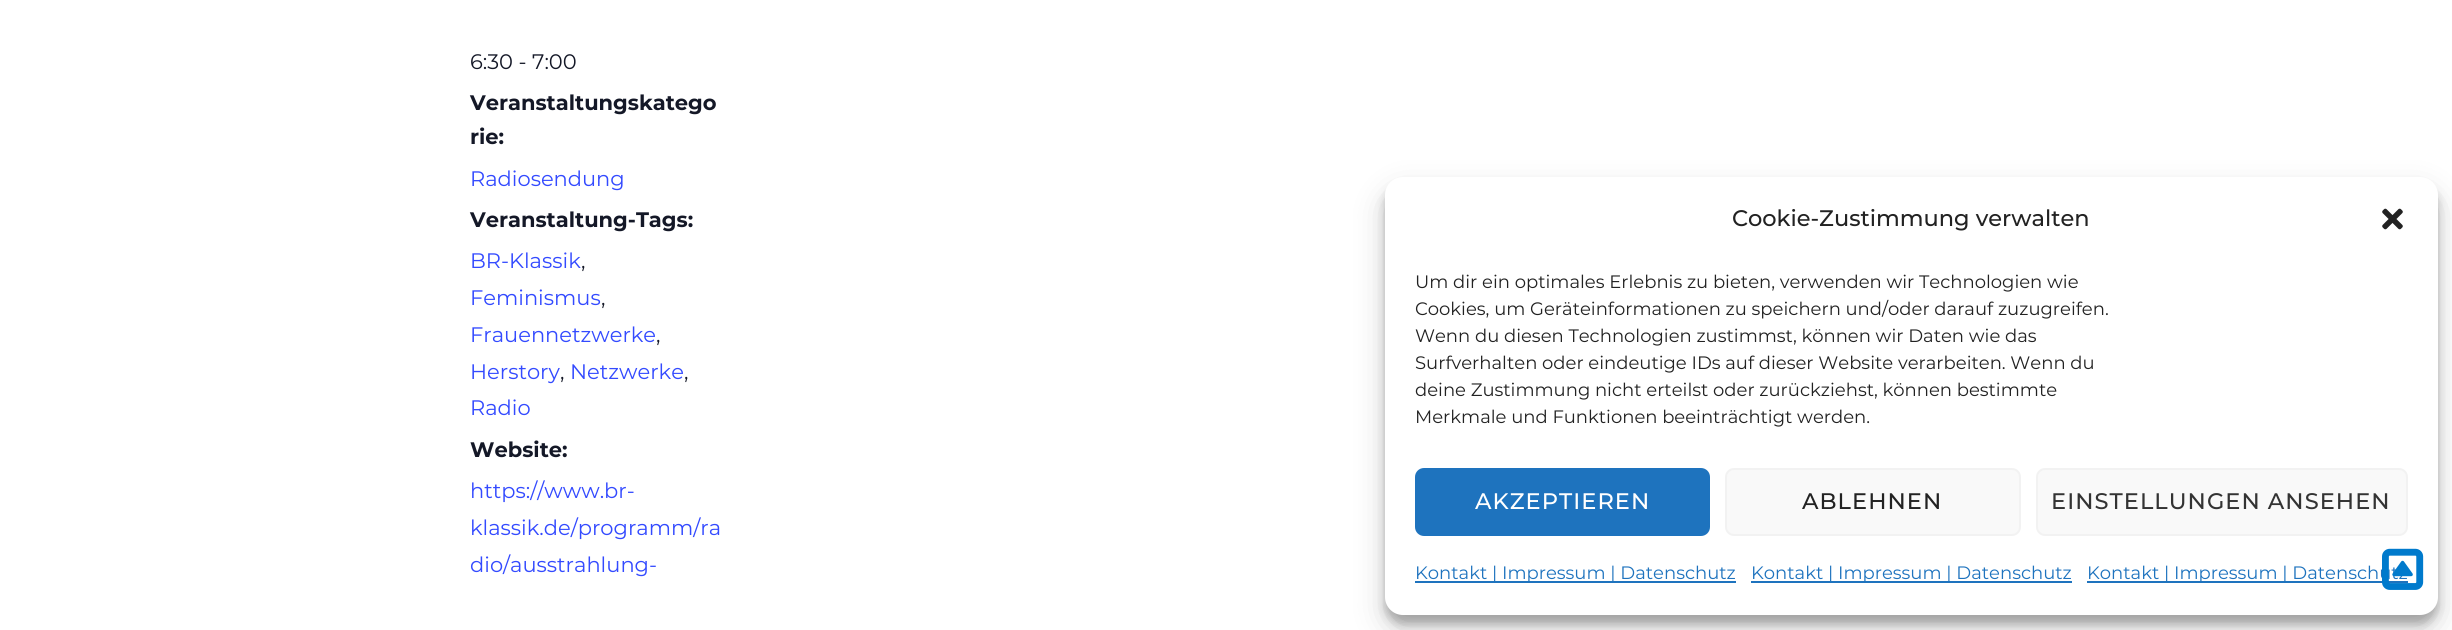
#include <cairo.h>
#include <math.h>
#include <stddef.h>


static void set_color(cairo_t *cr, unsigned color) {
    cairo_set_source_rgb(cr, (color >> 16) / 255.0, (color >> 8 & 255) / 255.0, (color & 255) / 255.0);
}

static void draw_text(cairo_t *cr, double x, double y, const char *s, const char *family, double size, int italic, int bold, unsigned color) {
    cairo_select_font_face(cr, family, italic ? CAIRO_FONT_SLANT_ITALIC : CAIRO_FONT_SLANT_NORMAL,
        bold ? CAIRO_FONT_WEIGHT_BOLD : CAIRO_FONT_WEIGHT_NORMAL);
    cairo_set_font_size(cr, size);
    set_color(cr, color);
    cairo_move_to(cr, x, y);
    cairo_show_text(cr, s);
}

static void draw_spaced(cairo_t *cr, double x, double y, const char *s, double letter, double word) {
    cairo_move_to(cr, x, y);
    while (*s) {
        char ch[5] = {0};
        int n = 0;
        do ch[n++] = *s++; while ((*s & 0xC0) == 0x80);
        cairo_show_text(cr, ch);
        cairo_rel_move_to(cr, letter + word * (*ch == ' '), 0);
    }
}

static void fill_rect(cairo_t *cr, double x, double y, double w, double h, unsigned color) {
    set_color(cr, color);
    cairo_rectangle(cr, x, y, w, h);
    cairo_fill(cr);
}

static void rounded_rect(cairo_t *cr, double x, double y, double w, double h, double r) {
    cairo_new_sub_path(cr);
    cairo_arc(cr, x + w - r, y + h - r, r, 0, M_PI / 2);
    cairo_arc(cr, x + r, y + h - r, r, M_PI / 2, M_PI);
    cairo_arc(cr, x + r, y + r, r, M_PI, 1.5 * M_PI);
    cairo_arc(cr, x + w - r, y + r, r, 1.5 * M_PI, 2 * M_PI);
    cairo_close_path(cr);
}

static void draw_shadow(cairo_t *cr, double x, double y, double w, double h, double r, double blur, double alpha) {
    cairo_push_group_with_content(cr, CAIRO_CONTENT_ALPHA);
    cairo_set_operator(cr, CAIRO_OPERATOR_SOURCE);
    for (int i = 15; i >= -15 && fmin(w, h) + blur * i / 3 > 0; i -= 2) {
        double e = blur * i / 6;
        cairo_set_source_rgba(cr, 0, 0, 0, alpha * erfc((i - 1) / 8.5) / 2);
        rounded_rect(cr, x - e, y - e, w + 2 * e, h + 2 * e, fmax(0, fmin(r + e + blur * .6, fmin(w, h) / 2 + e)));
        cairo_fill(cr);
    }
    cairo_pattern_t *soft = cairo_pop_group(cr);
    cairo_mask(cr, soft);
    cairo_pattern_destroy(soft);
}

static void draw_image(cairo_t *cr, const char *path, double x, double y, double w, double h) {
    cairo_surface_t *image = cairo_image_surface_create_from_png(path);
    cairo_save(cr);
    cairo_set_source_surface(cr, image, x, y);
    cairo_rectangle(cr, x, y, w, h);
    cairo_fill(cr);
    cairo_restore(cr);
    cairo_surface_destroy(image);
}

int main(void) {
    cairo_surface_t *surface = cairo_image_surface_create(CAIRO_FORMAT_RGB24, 2452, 630);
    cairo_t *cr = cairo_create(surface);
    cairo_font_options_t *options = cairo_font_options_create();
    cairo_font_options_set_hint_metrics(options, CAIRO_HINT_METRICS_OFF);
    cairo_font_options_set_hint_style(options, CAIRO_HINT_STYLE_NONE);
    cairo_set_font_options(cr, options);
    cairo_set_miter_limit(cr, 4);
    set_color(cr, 0xFFFFFF);
    cairo_paint(cr);
    draw_text(cr, 470, 69, "6:30 - 7:00", "Montserrat", 21, 0, 0, 0x141827);
    draw_text(cr, 470, 110, "Veranstaltungskatego", "Montserrat", 21, 0, 1, 0x141827);
    draw_text(cr, 470, 144, "rie:", "Montserrat", 21, 0, 1, 0x141827);
    draw_text(cr, 470, 186, "Radiosendung", "Montserrat", 21, 0, 0, 0x334AFF);
    draw_text(cr, 470, 227, "Veranstaltung-Tags:", "Montserrat", 21, 0, 1, 0x141827);
    draw_text(cr, 470, 268, "BR-Klassik", "Montserrat", 21, 0, 0, 0x334AFF);
    draw_text(cr, 581, 268, ",", "Montserrat", 21, 0, 0, 0x141827);
    draw_text(cr, 470, 305, "Feminismus", "Montserrat", 21, 0, 0, 0x334AFF);
    draw_text(cr, 601, 305, ",", "Montserrat", 21, 0, 0, 0x141827);
    draw_text(cr, 470, 342, "Frauennetzwerke", "Montserrat", 21, 0, 0, 0x334AFF);
    draw_text(cr, 656, 342, ",", "Montserrat", 21, 0, 0, 0x141827);
    draw_text(cr, 470, 379, "Herstory", "Montserrat", 21, 0, 0, 0x334AFF);
    draw_text(cr, 560, 379, ",", "Montserrat", 21, 0, 0, 0x141827);
    draw_text(cr, 570, 379, "Netzwerke", "Montserrat", 21, 0, 0, 0x334AFF);
    draw_text(cr, 684, 379, ",", "Montserrat", 21, 0, 0, 0x141827);
    draw_text(cr, 470, 415, "Radio", "Montserrat", 21, 0, 0, 0x334AFF);
    draw_text(cr, 470, 457, "Website:", "Montserrat", 21, 0, 1, 0x141827);
    draw_text(cr, 470, 498, "https://www.br-", "Montserrat", 21, 0, 0, 0x334AFF);
    draw_text(cr, 470, 535, "klassik.de/programm/ra", "Montserrat", 21, 0, 0, 0x334AFF);
    draw_text(cr, 470, 572, "dio/ausstrahlung-", "Montserrat", 21, 0, 0, 0x334AFF);
    set_color(cr, 0x000000);
    draw_shadow(cr, 1385, 186, 1053, 438, 18, 4.5, 0.23);
    draw_shadow(cr, 1385, 192, 1053, 438, 18, 15, 0.19);
    set_color(cr, 0xFFFFFF);
    rounded_rect(cr, 1385, 177, 1053, 438, 18);
    cairo_fill(cr);
    draw_text(cr, 1732, 226, "Cookie-Zustimmung verwalten", "Montserrat Medium", 22.5, 0, 0, 0x222222);
    draw_image(cr, "assets/img1.png", 2382, 208, 21, 22);
    draw_text(cr, 1415, 288, "Um dir ein optimales Erlebnis zu bieten, verwenden wir Technologien wie", "Montserrat", 18, 0, 0, 0x222222);
    draw_text(cr, 1415, 315, "Cookies, um Geräteinformationen zu speichern und/oder darauf zuzugreifen.", "Montserrat", 18, 0, 0, 0x222222);
    draw_text(cr, 1415, 342, "Wenn du diesen Technologien zustimmst, können wir Daten wie das", "Montserrat", 18, 0, 0, 0x222222);
    draw_text(cr, 1415, 369, "Surfverhalten oder eindeutige IDs auf dieser Website verarbeiten. Wenn du", "Montserrat", 18, 0, 0, 0x222222);
    draw_text(cr, 1415, 396, "deine Zustimmung nicht erteilst oder zurückziehst, können bestimmte", "Montserrat", 18, 0, 0, 0x222222);
    draw_text(cr, 1415, 423, "Merkmale und Funktionen beeinträchtigt werden.", "Montserrat", 18, 0, 0, 0x222222);
    set_color(cr, 0x1E73BE);
    rounded_rect(cr, 1416, 469, 293, 66, 8);
    cairo_fill_preserve(cr);
    cairo_stroke(cr);
    cairo_select_font_face(cr, "Montserrat Medium", CAIRO_FONT_SLANT_NORMAL, CAIRO_FONT_WEIGHT_NORMAL);
    cairo_set_font_size(cr, 22.5);
    set_color(cr, 0xFFFFFF);
    draw_spaced(cr, 1475, 509, "AKZEPTIEREN", 1.05, 0);
    set_color(cr, 0xF9F9F9);
    rounded_rect(cr, 1726, 469, 294, 66, 8);
    cairo_fill_preserve(cr);
    set_color(cr, 0xF2F2F2);
    cairo_stroke(cr);
    set_color(cr, 0x222222);
    draw_spaced(cr, 1802, 509, "ABLEHNEN", 1.05, 0);
    set_color(cr, 0xF9F9F9);
    rounded_rect(cr, 2037, 469, 370, 66, 8);
    cairo_fill_preserve(cr);
    set_color(cr, 0xF2F2F2);
    cairo_stroke(cr);
    set_color(cr, 0x333333);
    draw_spaced(cr, 2051, 509, "EINSTELLUNGEN ANSEHEN", 1.05, 0);
    fill_rect(cr, 1415, 581, 321, 2, 0x1E73BE);
    draw_text(cr, 1415, 579, "Kontakt | Impressum | Datenschutz", "Montserrat", 18, 0, 0, 0x1E73BE);
    fill_rect(cr, 1751, 581, 321, 2, 0x1E73BE);
    draw_text(cr, 1751, 579, "Kontakt | Impressum | Datenschutz", "Montserrat", 18, 0, 0, 0x1E73BE);
    fill_rect(cr, 2087, 581, 321, 2, 0x1E73BE);
    draw_text(cr, 2087, 579, "Kontakt | Impressum | Datenschutz", "Montserrat", 18, 0, 0, 0x1E73BE);
    draw_image(cr, "assets/img2.png", 2382, 548, 42, 42);
    cairo_surface_write_to_png(surface, "output.png");
    cairo_font_options_destroy(options);
    cairo_destroy(cr);
    cairo_surface_destroy(surface);
    return 0;
}
